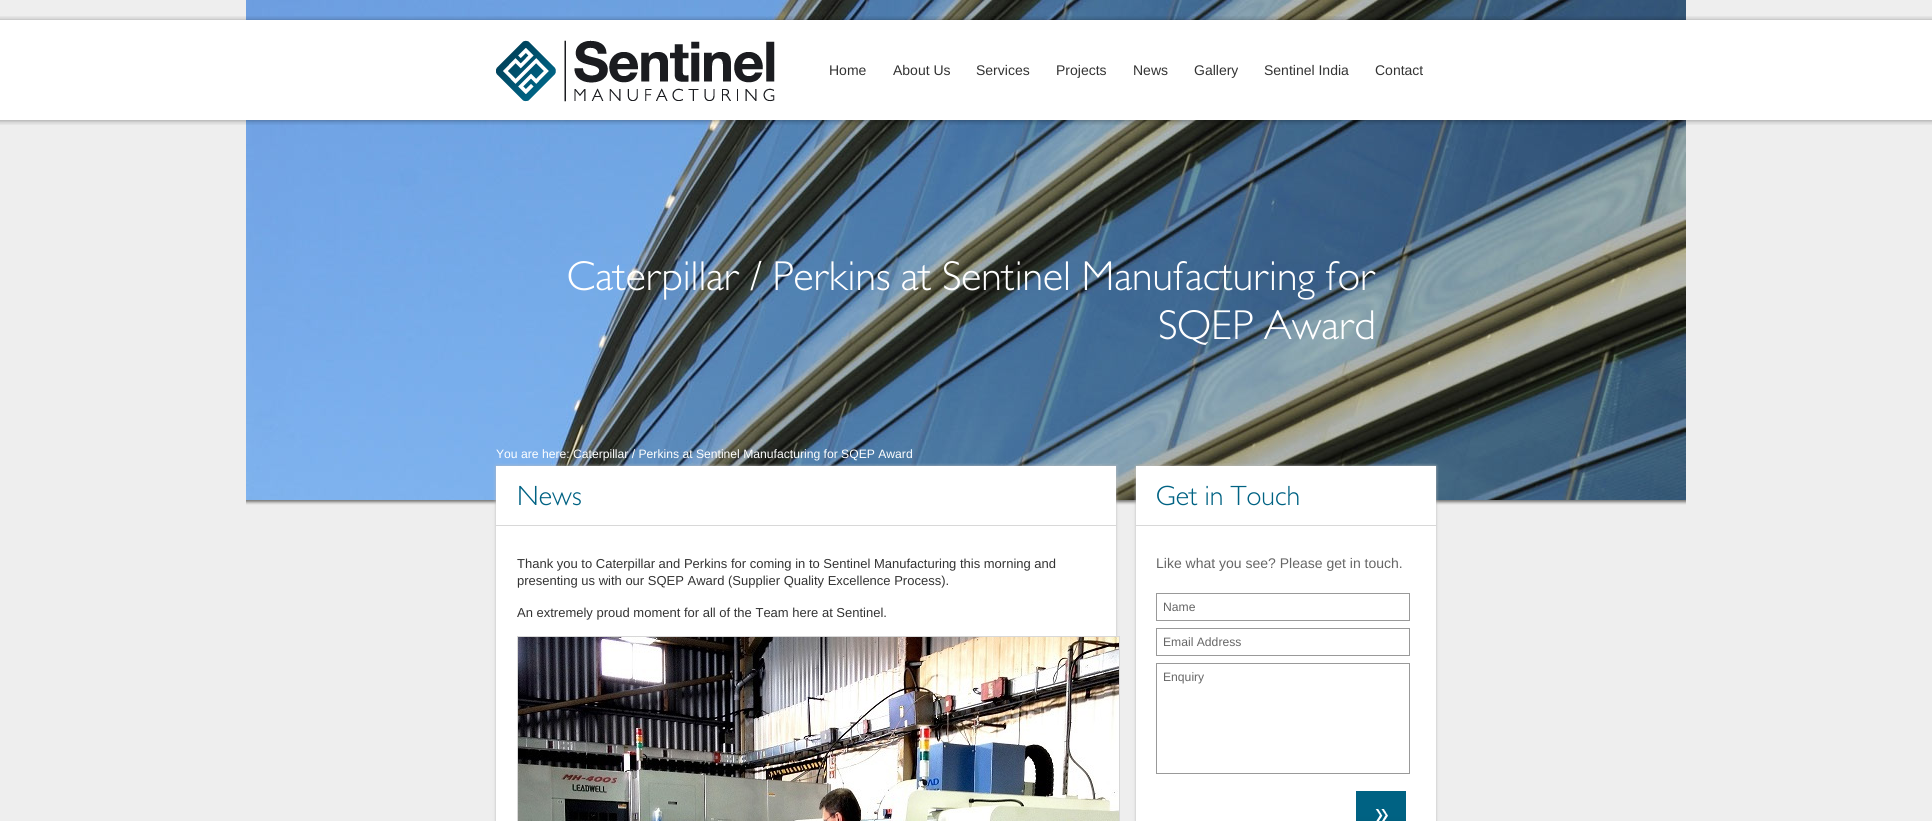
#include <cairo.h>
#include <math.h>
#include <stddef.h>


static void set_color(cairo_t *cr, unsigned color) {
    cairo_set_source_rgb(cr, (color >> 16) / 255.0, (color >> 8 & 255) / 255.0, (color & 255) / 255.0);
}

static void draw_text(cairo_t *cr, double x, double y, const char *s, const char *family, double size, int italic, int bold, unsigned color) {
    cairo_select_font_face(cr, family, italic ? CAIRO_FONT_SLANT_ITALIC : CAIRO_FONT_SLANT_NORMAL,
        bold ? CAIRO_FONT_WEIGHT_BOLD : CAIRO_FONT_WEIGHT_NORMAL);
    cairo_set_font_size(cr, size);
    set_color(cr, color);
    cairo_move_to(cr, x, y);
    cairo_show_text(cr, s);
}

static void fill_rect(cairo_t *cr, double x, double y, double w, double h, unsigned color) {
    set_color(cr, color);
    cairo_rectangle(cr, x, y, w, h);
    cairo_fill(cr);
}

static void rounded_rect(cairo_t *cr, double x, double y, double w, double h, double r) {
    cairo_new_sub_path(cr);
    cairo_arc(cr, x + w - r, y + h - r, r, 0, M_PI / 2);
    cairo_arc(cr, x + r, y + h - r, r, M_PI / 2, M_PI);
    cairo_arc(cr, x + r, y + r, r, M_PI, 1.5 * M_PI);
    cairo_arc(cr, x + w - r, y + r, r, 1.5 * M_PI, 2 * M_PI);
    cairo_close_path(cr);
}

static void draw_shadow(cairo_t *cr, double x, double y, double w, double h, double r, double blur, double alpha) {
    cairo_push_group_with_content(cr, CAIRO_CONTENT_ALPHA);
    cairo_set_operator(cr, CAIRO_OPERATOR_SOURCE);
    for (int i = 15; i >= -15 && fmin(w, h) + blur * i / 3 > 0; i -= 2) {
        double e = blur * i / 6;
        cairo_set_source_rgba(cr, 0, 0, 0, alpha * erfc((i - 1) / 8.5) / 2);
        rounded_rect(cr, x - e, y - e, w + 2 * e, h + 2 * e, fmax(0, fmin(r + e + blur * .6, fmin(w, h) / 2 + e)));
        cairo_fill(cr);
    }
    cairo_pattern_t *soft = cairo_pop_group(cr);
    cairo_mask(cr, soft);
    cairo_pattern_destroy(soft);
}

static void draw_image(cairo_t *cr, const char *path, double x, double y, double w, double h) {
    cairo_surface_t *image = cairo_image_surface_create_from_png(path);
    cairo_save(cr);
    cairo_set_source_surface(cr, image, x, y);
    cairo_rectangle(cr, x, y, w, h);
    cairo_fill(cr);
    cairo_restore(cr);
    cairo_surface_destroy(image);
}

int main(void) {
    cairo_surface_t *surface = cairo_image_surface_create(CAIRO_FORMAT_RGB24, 1932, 821);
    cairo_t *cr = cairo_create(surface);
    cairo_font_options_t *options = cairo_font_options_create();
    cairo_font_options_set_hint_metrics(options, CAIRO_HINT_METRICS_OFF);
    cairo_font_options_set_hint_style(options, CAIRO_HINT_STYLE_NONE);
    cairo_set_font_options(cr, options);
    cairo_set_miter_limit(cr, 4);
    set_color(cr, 0xEEEEEE);
    cairo_paint(cr);
    draw_image(cr, "assets/img1.png", 246, 500, 1440, 5);
    draw_image(cr, "assets/img2.png", 246, 0, 1440, 500);
    draw_image(cr, "assets/img3.png", 0, 16, 1932, 109);
    draw_image(cr, "assets/img4.png", 496, 40, 279, 62);
    draw_text(cr, 829, 75, "Home", "Liberation Sans", 14, 0, 0, 0x333333);
    draw_text(cr, 893, 75, "About Us", "Liberation Sans", 14, 0, 0, 0x333333);
    draw_text(cr, 976, 75, "Services", "Liberation Sans", 14, 0, 0, 0x333333);
    draw_text(cr, 1056, 75, "Projects", "Liberation Sans", 14, 0, 0, 0x333333);
    draw_text(cr, 1133, 75, "News", "Liberation Sans", 14, 0, 0, 0x333333);
    draw_text(cr, 1194, 75, "Gallery", "Liberation Sans", 14, 0, 0, 0x333333);
    draw_text(cr, 1264, 75, "Sentinel India", "Liberation Sans", 14, 0, 0, 0x333333);
    draw_text(cr, 1375, 75, "Contact", "Liberation Sans", 14, 0, 0, 0x333333);
    draw_text(cr, 567, 290, "Caterpillar / Perkins at Sentinel Manufacturing for", "Gill Sans Light", 42, 0, 0, 0xFFFFFF);
    draw_text(cr, 1158, 339, "SQEP Award", "Gill Sans Light", 42, 0, 0, 0xFFFFFF);
    set_color(cr, 0xBBBBBB);
    draw_shadow(cr, 496, 466, 620, 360, 0, 1.5, 1);
    draw_text(cr, 496, 458, "You are here: Caterpillar / Perkins at Sentinel Manufacturing for SQEP Award", "Liberation Sans", 12.15, 0, 0, 0xFFFFFF);
    fill_rect(cr, 496, 466, 620, 355, 0xFFFFFF);
    fill_rect(cr, 496, 525, 620, 1, 0xD8D8D8);
    draw_text(cr, 517, 505, "News", "Gill Sans Light", 28, 0, 0, 0x006283);
    draw_text(cr, 517, 568, "Thank you to Caterpillar and Perkins for coming in to Sentinel Manufacturing this morning and", "Liberation Sans", 13, 0, 0, 0x333333);
    draw_text(cr, 517, 585, "presenting us with our SQEP Award (Supplier Quality Excellence Process).", "Liberation Sans", 13, 0, 0, 0x333333);
    draw_text(cr, 517, 617, "An extremely proud moment for all of the Team here at Sentinel.", "Liberation Sans", 13, 0, 0, 0x333333);
    cairo_rectangle(cr, 517.5, 636.5, 602, 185);
    set_color(cr, 0xD8D8D8);
    cairo_set_line_width(cr, 1);
    cairo_stroke(cr);
    draw_image(cr, "assets/img5.png", 518, 637, 601, 184);
    set_color(cr, 0xBBBBBB);
    draw_shadow(cr, 1136, 466, 300, 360, 0, 1.5, 1);
    fill_rect(cr, 1136, 466, 300, 355, 0xFFFFFF);
    fill_rect(cr, 1136, 525, 300, 1, 0xD8D8D8);
    draw_text(cr, 1156, 505, "Get in Touch", "Gill Sans Light", 28, 0, 0, 0x006283);
    draw_text(cr, 1156, 568, "Like what you see? Please get in touch.", "Liberation Sans", 14, 0, 0, 0x666666);
    cairo_rectangle(cr, 1156.5, 593.5, 253, 27);
    set_color(cr, 0x999999);
    cairo_stroke(cr);
    draw_text(cr, 1163, 611, "Name", "Liberation Sans", 12.15, 0, 0, 0x666666);
    cairo_rectangle(cr, 1156.5, 628.5, 253, 27);
    set_color(cr, 0x999999);
    cairo_stroke(cr);
    draw_text(cr, 1163, 646, "Email Address", "Liberation Sans", 12.15, 0, 0, 0x666666);
    cairo_rectangle(cr, 1156.5, 663.5, 253, 110);
    set_color(cr, 0x999999);
    cairo_stroke(cr);
    draw_text(cr, 1163, 681, "Enquiry", "Liberation Sans", 12.15, 0, 0, 0x666666);
    draw_image(cr, "assets/img6.png", 1356, 791, 50, 30);
    cairo_surface_write_to_png(surface, "output.png");
    cairo_font_options_destroy(options);
    cairo_destroy(cr);
    cairo_surface_destroy(surface);
    return 0;
}
